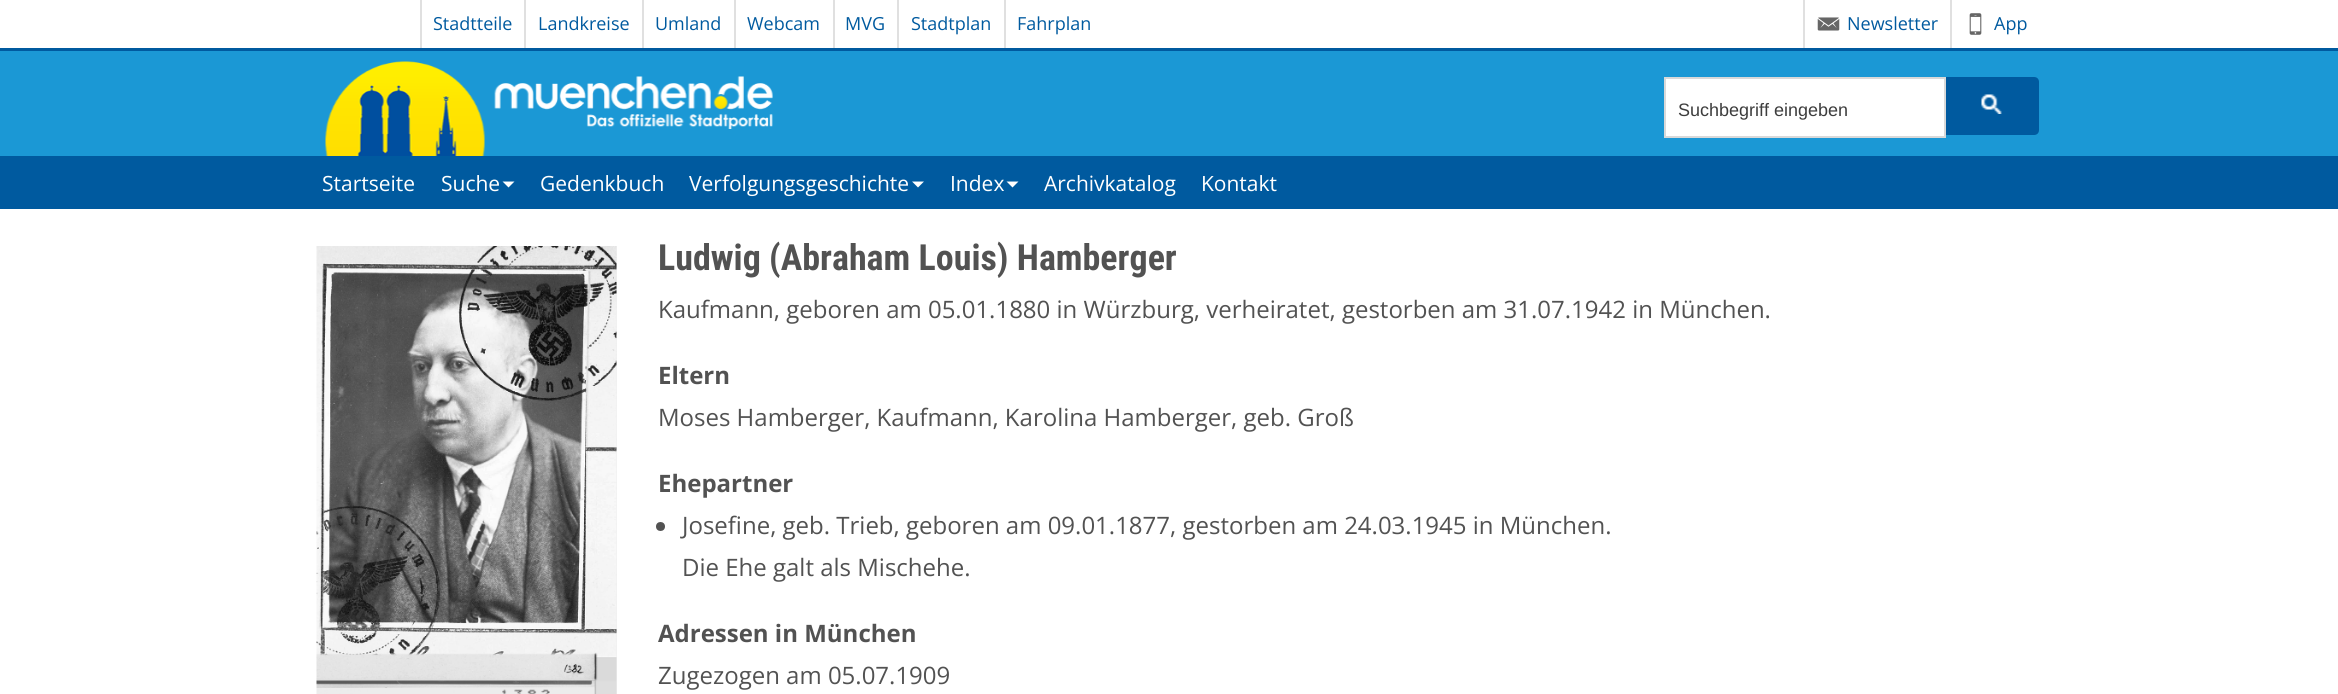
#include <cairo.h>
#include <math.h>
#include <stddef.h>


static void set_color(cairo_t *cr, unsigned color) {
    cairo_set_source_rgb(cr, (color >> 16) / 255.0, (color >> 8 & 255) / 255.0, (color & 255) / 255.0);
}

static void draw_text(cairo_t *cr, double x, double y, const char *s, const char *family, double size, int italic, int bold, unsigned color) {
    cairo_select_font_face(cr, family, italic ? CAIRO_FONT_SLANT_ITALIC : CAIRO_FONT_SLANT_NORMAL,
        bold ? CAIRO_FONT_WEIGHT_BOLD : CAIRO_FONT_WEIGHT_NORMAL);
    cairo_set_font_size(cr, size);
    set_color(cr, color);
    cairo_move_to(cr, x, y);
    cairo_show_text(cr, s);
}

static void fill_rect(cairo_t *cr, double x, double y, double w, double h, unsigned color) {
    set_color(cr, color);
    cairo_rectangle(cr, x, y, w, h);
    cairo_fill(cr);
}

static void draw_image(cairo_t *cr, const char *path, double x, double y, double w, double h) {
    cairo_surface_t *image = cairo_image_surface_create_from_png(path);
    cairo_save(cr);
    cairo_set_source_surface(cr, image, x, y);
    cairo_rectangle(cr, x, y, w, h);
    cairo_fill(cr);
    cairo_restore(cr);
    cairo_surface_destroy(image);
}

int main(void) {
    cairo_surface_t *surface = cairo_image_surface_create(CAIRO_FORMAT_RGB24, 2338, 694);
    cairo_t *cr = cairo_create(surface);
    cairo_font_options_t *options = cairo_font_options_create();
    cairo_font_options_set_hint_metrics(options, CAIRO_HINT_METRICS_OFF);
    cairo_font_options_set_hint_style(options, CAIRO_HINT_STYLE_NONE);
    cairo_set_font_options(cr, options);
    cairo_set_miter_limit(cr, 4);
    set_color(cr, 0xFFFFFF);
    cairo_paint(cr);
    fill_rect(cr, 0, 48, 2338, 3, 0x005A9F);
    fill_rect(cr, 420, 0, 2, 48, 0xE0E0E0);
    draw_text(cr, 433, 30, "Stadtteile", "Open Sans", 18, 0, 0, 0x005A9F);
    fill_rect(cr, 524, 0, 2, 48, 0xE0E0E0);
    draw_text(cr, 538, 30, "Landkreise", "Open Sans", 18, 0, 0, 0x005A9F);
    fill_rect(cr, 642, 0, 2, 48, 0xE0E0E0);
    draw_text(cr, 655, 30, "Umland", "Open Sans", 18, 0, 0, 0x005A9F);
    fill_rect(cr, 734, 0, 2, 48, 0xE0E0E0);
    draw_text(cr, 747, 30, "Webcam", "Open Sans", 18, 0, 0, 0x005A9F);
    fill_rect(cr, 833, 0, 2, 48, 0xE0E0E0);
    draw_text(cr, 845, 30, "MVG", "Open Sans", 18, 0, 0, 0x005A9F);
    fill_rect(cr, 897, 0, 2, 48, 0xE0E0E0);
    draw_text(cr, 911, 30, "Stadtplan", "Open Sans", 18, 0, 0, 0x005A9F);
    fill_rect(cr, 1004, 0, 2, 48, 0xE0E0E0);
    draw_text(cr, 1017, 30, "Fahrplan", "Open Sans", 18, 0, 0, 0x005A9F);
    draw_image(cr, "assets/img1.png", 1817, 17, 23, 14);
    fill_rect(cr, 1803, 0, 2, 48, 0xE0E0E0);
    draw_text(cr, 1847, 30, "Newsletter", "Open Sans", 18, 0, 0, 0x005A9F);
    draw_image(cr, "assets/img2.png", 1969, 13, 13, 22);
    fill_rect(cr, 1950, 0, 2, 48, 0xE0E0E0);
    draw_text(cr, 1994, 30, "App", "Open Sans", 18, 0, 0, 0x005A9F);
    fill_rect(cr, 0, 51, 2338, 105, 0x1B98D5);
    draw_image(cr, "assets/img3.png", 325, 61, 160, 95);
    draw_image(cr, "assets/img4.png", 494, 76, 279, 53);
    set_color(cr, 0xFFFFFF);
    cairo_rectangle(cr, 1665, 78, 280, 59);
    cairo_fill_preserve(cr);
    set_color(cr, 0xD9D9D9);
    cairo_stroke(cr);
    draw_text(cr, 1678, 116, "Suchbegriff eingeben", "Liberation Sans", 18, 0, 0, 0x3D3D3D);
    set_color(cr, 0x005A9F);
    cairo_new_path(cr);
    cairo_move_to(cr, 1946, 77);
    cairo_line_to(cr, 2034, 77);
    cairo_curve_to(cr, 2037, 77, 2039, 79, 2039, 82);
    cairo_line_to(cr, 2039, 130);
    cairo_curve_to(cr, 2039, 133, 2037, 135, 2034, 135);
    cairo_line_to(cr, 1946, 135);
    cairo_close_path(cr);
    cairo_fill(cr);
    draw_image(cr, "assets/img5.png", 1981, 94, 21, 20);
    fill_rect(cr, 0, 156, 2338, 53, 0x005A9F);
    draw_text(cr, 322, 191, "Startseite", "Open Sans", 21, 0, 0, 0xFFFFFF);
    draw_text(cr, 441, 191, "Suche", "Open Sans", 21, 0, 0, 0xFFFFFF);
    cairo_new_path(cr);
    cairo_move_to(cr, 502.5, 181.5);
    cairo_line_to(cr, 514.5, 181.5);
    cairo_line_to(cr, 508.5, 187.5);
    cairo_close_path(cr);
    cairo_fill(cr);
    draw_text(cr, 540, 191, "Gedenkbuch", "Open Sans", 21, 0, 0, 0xFFFFFF);
    draw_text(cr, 689, 191, "Verfolgungsgeschichte", "Open Sans", 21, 0, 0, 0xFFFFFF);
    cairo_new_path(cr);
    cairo_move_to(cr, 912, 181.5);
    cairo_line_to(cr, 924, 181.5);
    cairo_line_to(cr, 918, 187.5);
    cairo_close_path(cr);
    cairo_fill(cr);
    draw_text(cr, 950, 191, "Index", "Open Sans", 21, 0, 0, 0xFFFFFF);
    cairo_new_path(cr);
    cairo_move_to(cr, 1006.5, 181.5);
    cairo_line_to(cr, 1018.5, 181.5);
    cairo_line_to(cr, 1012.5, 187.5);
    cairo_close_path(cr);
    cairo_fill(cr);
    draw_text(cr, 1044, 191, "Archivkatalog", "Open Sans", 21, 0, 0, 0xFFFFFF);
    draw_text(cr, 1201, 191, "Kontakt", "Open Sans", 21, 0, 0, 0xFFFFFF);
    fill_rect(cr, 616, 246, 1, 448, 0xEFEFEF);
    draw_image(cr, "assets/img6.png", 316, 246, 301, 448);
    draw_text(cr, 658, 270, "Ludwig (Abraham Louis) Hamberger", "Roboto Condensed", 36, 0, 1, 0x525252);
    draw_text(cr, 658, 318, "Kaufmann, geboren am 05.01.1880 in Würzburg, verheiratet, gestorben am 31.07.1942 in München.", "Open Sans", 24, 0, 0, 0x525252);
    draw_text(cr, 658, 384, "Eltern", "Open Sans", 24, 0, 1, 0x525252);
    draw_text(cr, 658, 426, "Moses Hamberger, Kaufmann, Karolina Hamberger, geb. Groß", "Open Sans", 24, 0, 0, 0x525252);
    draw_text(cr, 658, 492, "Ehepartner", "Open Sans", 24, 0, 1, 0x525252);
    cairo_new_path(cr);
    cairo_arc(cr, 660.5, 526.5, 4.5, 0, 2 * M_PI);
    cairo_fill(cr);
    draw_text(cr, 682, 534, "Josefine, geb. Trieb, geboren am 09.01.1877, gestorben am 24.03.1945 in München.", "Open Sans", 24, 0, 0, 0x525252);
    draw_text(cr, 682, 576, "Die Ehe galt als Mischehe.", "Open Sans", 24, 0, 0, 0x525252);
    draw_text(cr, 658, 642, "Adressen in München", "Open Sans", 24, 0, 1, 0x525252);
    draw_text(cr, 658, 684, "Zugezogen am 05.07.1909", "Open Sans", 24, 0, 0, 0x525252);
    cairo_surface_write_to_png(surface, "output.png");
    cairo_font_options_destroy(options);
    cairo_destroy(cr);
    cairo_surface_destroy(surface);
    return 0;
}
